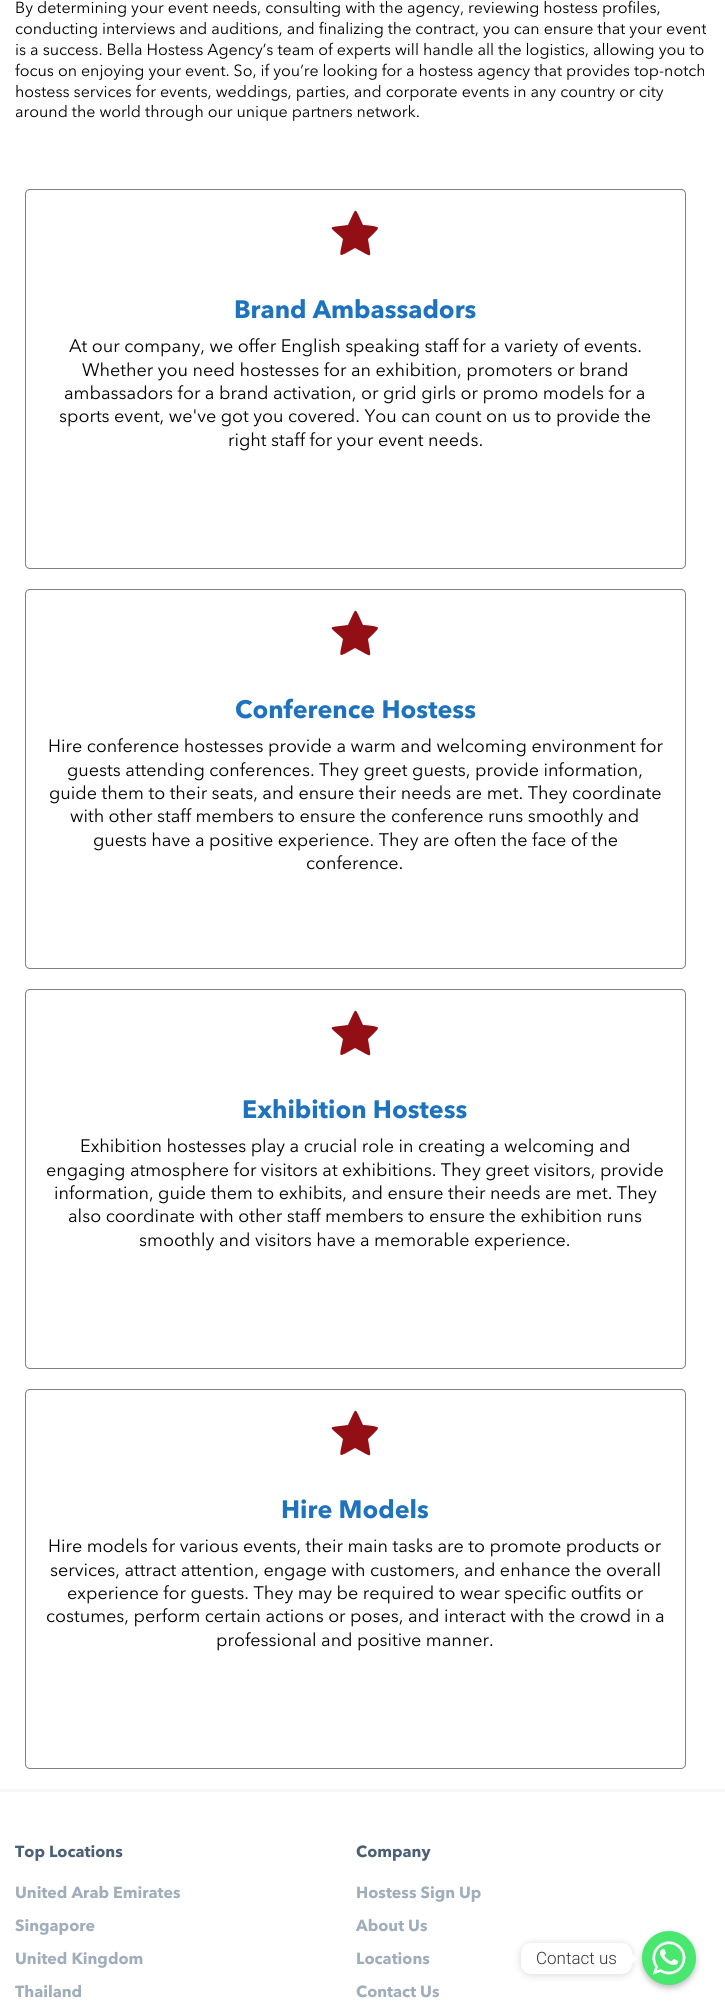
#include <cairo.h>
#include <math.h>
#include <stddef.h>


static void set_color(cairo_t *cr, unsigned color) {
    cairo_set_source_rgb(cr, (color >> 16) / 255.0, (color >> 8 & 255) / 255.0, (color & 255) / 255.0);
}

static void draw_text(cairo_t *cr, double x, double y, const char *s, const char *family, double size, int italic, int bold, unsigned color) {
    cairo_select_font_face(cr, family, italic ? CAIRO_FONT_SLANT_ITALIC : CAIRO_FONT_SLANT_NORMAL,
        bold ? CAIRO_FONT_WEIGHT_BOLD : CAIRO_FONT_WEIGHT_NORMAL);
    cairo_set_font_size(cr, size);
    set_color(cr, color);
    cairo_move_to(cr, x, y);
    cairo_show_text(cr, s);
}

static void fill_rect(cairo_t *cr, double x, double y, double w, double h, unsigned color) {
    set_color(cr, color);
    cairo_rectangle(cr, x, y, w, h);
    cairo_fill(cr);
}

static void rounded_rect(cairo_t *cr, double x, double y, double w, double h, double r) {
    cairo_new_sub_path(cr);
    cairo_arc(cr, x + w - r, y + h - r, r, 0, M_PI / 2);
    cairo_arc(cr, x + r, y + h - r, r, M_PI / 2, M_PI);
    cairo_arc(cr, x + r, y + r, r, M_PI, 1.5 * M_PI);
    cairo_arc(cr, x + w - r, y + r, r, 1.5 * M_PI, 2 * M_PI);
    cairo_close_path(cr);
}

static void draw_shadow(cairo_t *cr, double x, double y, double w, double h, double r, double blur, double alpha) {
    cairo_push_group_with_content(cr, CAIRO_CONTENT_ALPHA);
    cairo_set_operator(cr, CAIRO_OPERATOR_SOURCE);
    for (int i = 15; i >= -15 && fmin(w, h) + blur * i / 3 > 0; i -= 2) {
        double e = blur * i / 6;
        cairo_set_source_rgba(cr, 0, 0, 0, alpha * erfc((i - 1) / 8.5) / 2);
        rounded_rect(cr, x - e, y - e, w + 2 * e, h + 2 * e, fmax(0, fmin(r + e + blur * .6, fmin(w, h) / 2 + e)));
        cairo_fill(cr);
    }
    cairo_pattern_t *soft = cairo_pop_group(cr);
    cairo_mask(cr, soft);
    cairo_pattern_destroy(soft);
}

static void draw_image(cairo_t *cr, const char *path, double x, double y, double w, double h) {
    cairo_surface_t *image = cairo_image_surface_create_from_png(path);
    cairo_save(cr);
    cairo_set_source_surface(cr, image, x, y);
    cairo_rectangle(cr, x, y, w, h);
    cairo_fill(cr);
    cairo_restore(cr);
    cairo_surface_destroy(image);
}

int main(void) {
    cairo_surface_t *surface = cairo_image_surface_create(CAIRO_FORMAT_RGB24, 725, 2010);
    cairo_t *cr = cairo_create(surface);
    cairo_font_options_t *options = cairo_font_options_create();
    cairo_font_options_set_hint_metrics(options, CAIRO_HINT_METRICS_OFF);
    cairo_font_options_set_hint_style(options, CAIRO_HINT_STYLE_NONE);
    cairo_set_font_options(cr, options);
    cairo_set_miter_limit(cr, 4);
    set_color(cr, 0xFFFFFF);
    cairo_paint(cr);
    draw_text(cr, 15, 13, "By determining your event needs, consulting with the agency, reviewing hostess profiles,", "Avenir Next", 16, 0, 0, 0x000000);
    draw_text(cr, 15, 34, "conducting interviews and auditions, and finalizing the contract, you can ensure that your event", "Avenir Next", 16, 0, 0, 0x000000);
    draw_text(cr, 15, 55, "is a success. Bella Hostess Agency’s team of experts will handle all the logistics, allowing you to", "Avenir Next", 16, 0, 0, 0x000000);
    draw_text(cr, 15, 76, "focus on enjoying your event. So, if you’re looking for a hostess agency that provides top-notch", "Avenir Next", 16, 0, 0, 0x000000);
    draw_text(cr, 15, 97, "hostess services for events, weddings, parties, and corporate events in any country or city", "Avenir Next", 16, 0, 0, 0x000000);
    draw_text(cr, 15, 117, "around the world through our unique partners network.", "Avenir Next", 16, 0, 0, 0x000000);
    rounded_rect(cr, 25.5, 189.5, 660, 379, 4.5);
    set_color(cr, 0x808080);
    cairo_set_line_width(cr, 1);
    cairo_stroke(cr);
    set_color(cr, 0x940E15);
    cairo_new_path(cr);
    cairo_move_to(cr, 378, 228);
    cairo_curve_to(cr, 378, 230, 369, 238, 368, 239);
    cairo_curve_to(cr, 371, 260, 374, 258, 355, 248);
    cairo_curve_to(cr, 337, 258, 339, 259, 343, 239);
    cairo_curve_to(cr, 328, 225, 326, 228, 348, 225);
    cairo_curve_to(cr, 357, 206, 354, 206, 363, 225);
    cairo_curve_to(cr, 365, 225, 378, 226, 378, 228);
    cairo_close_path(cr);
    cairo_fill(cr);
    draw_text(cr, 234, 318, "Brand Ambassadors", "Avenir Next", 25, 0, 1, 0x1E73BE);
    draw_text(cr, 69, 352, "At our company, we offer English speaking staff for a variety of events.", "Avenir Next", 18, 0, 0, 0x000000);
    draw_text(cr, 82, 376, "Whether you need hostesses for an exhibition, promoters or brand", "Avenir Next", 18, 0, 0, 0x000000);
    draw_text(cr, 64, 399, "ambassadors for a brand activation, or grid girls or promo models for a", "Avenir Next", 18, 0, 0, 0x000000);
    draw_text(cr, 59, 422, "sports event, we've got you covered. You can count on us to provide the", "Avenir Next", 18, 0, 0, 0x000000);
    draw_text(cr, 228, 446, "right staff for your event needs.", "Avenir Next", 18, 0, 0, 0x000000);
    rounded_rect(cr, 25.5, 589.5, 660, 379, 4.5);
    set_color(cr, 0x808080);
    cairo_stroke(cr);
    set_color(cr, 0x940E15);
    cairo_new_path(cr);
    cairo_move_to(cr, 378, 628);
    cairo_curve_to(cr, 378, 630, 369, 638, 368, 639);
    cairo_curve_to(cr, 371, 660, 374, 658, 355, 648);
    cairo_curve_to(cr, 337, 658, 339, 659, 343, 639);
    cairo_curve_to(cr, 328, 625, 326, 628, 348, 625);
    cairo_curve_to(cr, 357, 606, 354, 606, 363, 625);
    cairo_curve_to(cr, 365, 625, 378, 626, 378, 628);
    cairo_close_path(cr);
    cairo_fill(cr);
    draw_text(cr, 235, 718, "Conference Hostess", "Avenir Next", 25, 0, 1, 0x1E73BE);
    draw_text(cr, 48, 752, "Hire conference hostesses provide a warm and welcoming environment for", "Avenir Next", 18, 0, 0, 0x000000);
    draw_text(cr, 67, 776, "guests attending conferences. They greet guests, provide information,", "Avenir Next", 18, 0, 0, 0x000000);
    draw_text(cr, 49, 799, "guide them to their seats, and ensure their needs are met. They coordinate", "Avenir Next", 18, 0, 0, 0x000000);
    draw_text(cr, 70, 822, "with other staff members to ensure the conference runs smoothly and", "Avenir Next", 18, 0, 0, 0x000000);
    draw_text(cr, 93, 846, "guests have a positive experience. They are often the face of the", "Avenir Next", 18, 0, 0, 0x000000);
    draw_text(cr, 306, 869, "conference.", "Avenir Next", 18, 0, 0, 0x000000);
    rounded_rect(cr, 25.5, 989.5, 660, 379, 4.5);
    set_color(cr, 0x808080);
    cairo_stroke(cr);
    set_color(cr, 0x940E15);
    cairo_new_path(cr);
    cairo_move_to(cr, 378, 1028);
    cairo_curve_to(cr, 378, 1030, 369, 1038, 368, 1039);
    cairo_curve_to(cr, 371, 1060, 374, 1058, 355, 1048);
    cairo_curve_to(cr, 337, 1058, 339, 1059, 343, 1039);
    cairo_curve_to(cr, 328, 1025, 326, 1028, 348, 1025);
    cairo_curve_to(cr, 357, 1006, 354, 1006, 363, 1025);
    cairo_curve_to(cr, 365, 1025, 378, 1026, 378, 1028);
    cairo_close_path(cr);
    cairo_fill(cr);
    draw_text(cr, 242, 1118, "Exhibition Hostess", "Avenir Next", 25, 0, 1, 0x1E73BE);
    draw_text(cr, 80, 1152, "Exhibition hostesses play a crucial role in creating a welcoming and", "Avenir Next", 18, 0, 0, 0x000000);
    draw_text(cr, 46, 1176, "engaging atmosphere for visitors at exhibitions. They greet visitors, provide", "Avenir Next", 18, 0, 0, 0x000000);
    draw_text(cr, 54, 1199, "information, guide them to exhibits, and ensure their needs are met. They", "Avenir Next", 18, 0, 0, 0x000000);
    draw_text(cr, 68, 1222, "also coordinate with other staff members to ensure the exhibition runs", "Avenir Next", 18, 0, 0, 0x000000);
    draw_text(cr, 139, 1246, "smoothly and visitors have a memorable experience.", "Avenir Next", 18, 0, 0, 0x000000);
    rounded_rect(cr, 25.5, 1389.5, 660, 379, 4.5);
    set_color(cr, 0x808080);
    cairo_stroke(cr);
    set_color(cr, 0x940E15);
    cairo_new_path(cr);
    cairo_move_to(cr, 378, 1428);
    cairo_curve_to(cr, 378, 1430, 369, 1438, 368, 1439);
    cairo_curve_to(cr, 371, 1460, 374, 1458, 355, 1448);
    cairo_curve_to(cr, 337, 1458, 339, 1459, 343, 1439);
    cairo_curve_to(cr, 328, 1425, 326, 1428, 348, 1425);
    cairo_curve_to(cr, 357, 1406, 354, 1406, 363, 1425);
    cairo_curve_to(cr, 365, 1425, 378, 1426, 378, 1428);
    cairo_close_path(cr);
    cairo_fill(cr);
    draw_text(cr, 281, 1518, "Hire Models", "Avenir Next", 25, 0, 1, 0x1E73BE);
    draw_text(cr, 48, 1552, "Hire models for various events, their main tasks are to promote products or", "Avenir Next", 18, 0, 0, 0x000000);
    draw_text(cr, 50, 1576, "services, attract attention, engage with customers, and enhance the overall", "Avenir Next", 18, 0, 0, 0x000000);
    draw_text(cr, 67, 1599, "experience for guests. They may be required to wear specific outfits or", "Avenir Next", 18, 0, 0, 0x000000);
    draw_text(cr, 46, 1622, "costumes, perform certain actions or poses, and interact with the crowd in a", "Avenir Next", 18, 0, 0, 0x000000);
    draw_text(cr, 216, 1646, "professional and positive manner.", "Avenir Next", 18, 0, 0, 0x000000);
    fill_rect(cr, 0, 1789, 725, 3, 0xF6F7F9);
    draw_text(cr, 15, 1857, "Top Locations", "Avenir Next", 16, 0, 1, 0x4B5F76);
    draw_text(cr, 15, 1898, "United Arab Emirates", "Avenir Next", 16, 0, 1, 0xA0ADBB);
    draw_text(cr, 15, 1931, "Singapore", "Avenir Next", 16, 0, 1, 0xA0ADBB);
    draw_text(cr, 15, 1964, "United Kingdom", "Avenir Next", 16, 0, 1, 0xA0ADBB);
    draw_text(cr, 15, 1997, "Thailand", "Avenir Next", 16, 0, 1, 0xA0ADBB);
    draw_text(cr, 356, 1857, "Company", "Avenir Next", 16, 0, 1, 0x4B5F76);
    draw_text(cr, 356, 1898, "Hostess Sign Up", "Avenir Next", 16, 0, 1, 0xA0ADBB);
    draw_text(cr, 356, 1931, "About Us", "Avenir Next", 16, 0, 1, 0xA0ADBB);
    draw_text(cr, 356, 1964, "Locations", "Avenir Next", 16, 0, 1, 0xA0ADBB);
    draw_text(cr, 356, 1997, "Contact Us", "Avenir Next", 16, 0, 1, 0xA0ADBB);
    set_color(cr, 0x000000);
    draw_shadow(cr, 642, 1934, 54, 54, 27, 3, 0.25);
    draw_image(cr, "assets/img1.png", 642, 1931, 54, 54);
    draw_shadow(cr, 521, 1944, 111, 31, 10, 4, 0.15);
    set_color(cr, 0xFFFFFF);
    rounded_rect(cr, 521, 1943, 111, 31, 10);
    cairo_fill(cr);
    draw_text(cr, 536, 1964, "Contact us", "Roboto Light", 17, 0, 0, 0x333333);
    set_color(cr, 0xFFFFFF);
    cairo_new_path(cr);
    cairo_move_to(cr, 632, 1963.5);
    cairo_line_to(cr, 632, 1953.5);
    cairo_line_to(cr, 637, 1958.5);
    cairo_close_path(cr);
    cairo_fill(cr);
    cairo_surface_write_to_png(surface, "output.png");
    cairo_font_options_destroy(options);
    cairo_destroy(cr);
    cairo_surface_destroy(surface);
    return 0;
}
